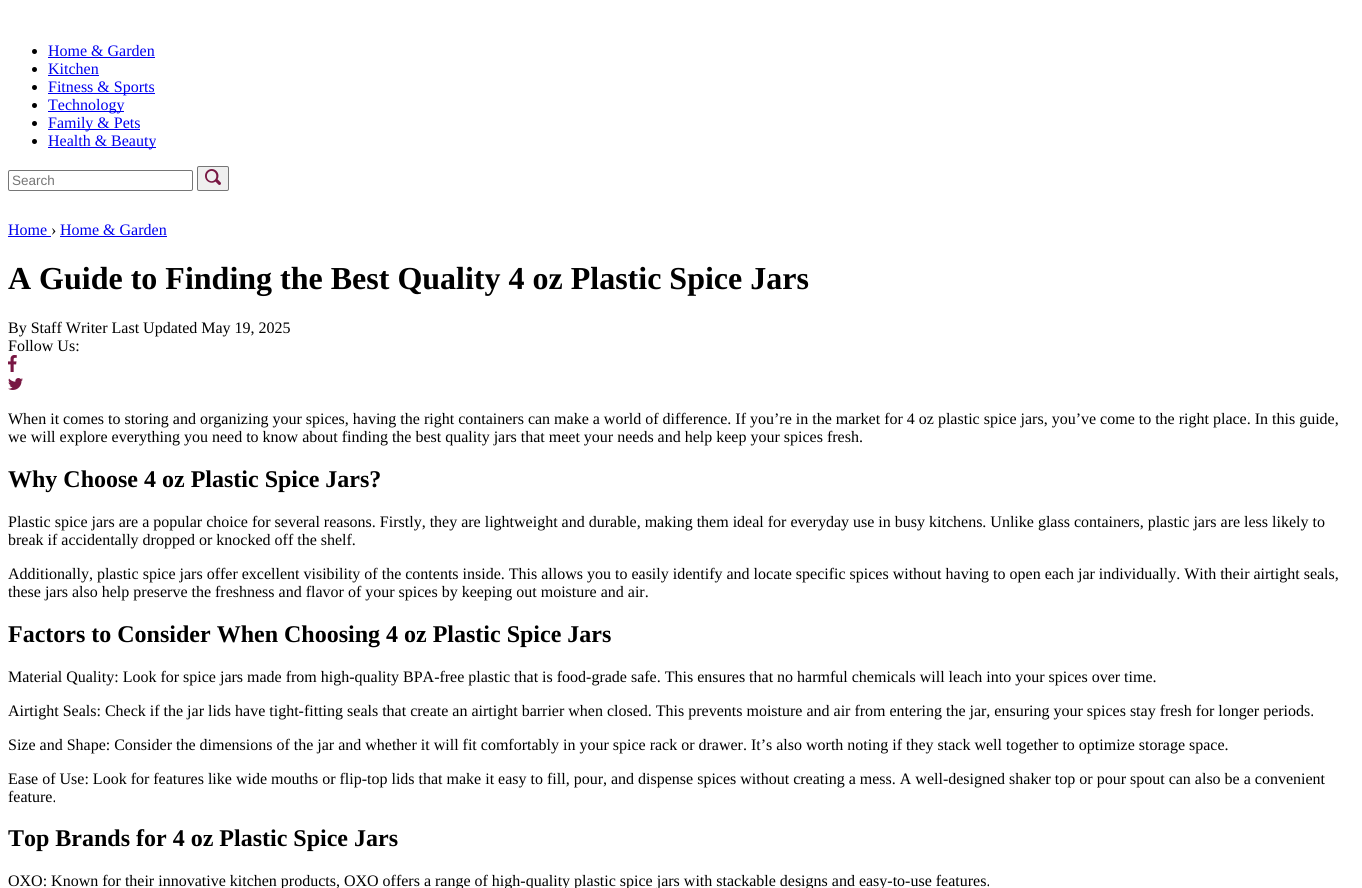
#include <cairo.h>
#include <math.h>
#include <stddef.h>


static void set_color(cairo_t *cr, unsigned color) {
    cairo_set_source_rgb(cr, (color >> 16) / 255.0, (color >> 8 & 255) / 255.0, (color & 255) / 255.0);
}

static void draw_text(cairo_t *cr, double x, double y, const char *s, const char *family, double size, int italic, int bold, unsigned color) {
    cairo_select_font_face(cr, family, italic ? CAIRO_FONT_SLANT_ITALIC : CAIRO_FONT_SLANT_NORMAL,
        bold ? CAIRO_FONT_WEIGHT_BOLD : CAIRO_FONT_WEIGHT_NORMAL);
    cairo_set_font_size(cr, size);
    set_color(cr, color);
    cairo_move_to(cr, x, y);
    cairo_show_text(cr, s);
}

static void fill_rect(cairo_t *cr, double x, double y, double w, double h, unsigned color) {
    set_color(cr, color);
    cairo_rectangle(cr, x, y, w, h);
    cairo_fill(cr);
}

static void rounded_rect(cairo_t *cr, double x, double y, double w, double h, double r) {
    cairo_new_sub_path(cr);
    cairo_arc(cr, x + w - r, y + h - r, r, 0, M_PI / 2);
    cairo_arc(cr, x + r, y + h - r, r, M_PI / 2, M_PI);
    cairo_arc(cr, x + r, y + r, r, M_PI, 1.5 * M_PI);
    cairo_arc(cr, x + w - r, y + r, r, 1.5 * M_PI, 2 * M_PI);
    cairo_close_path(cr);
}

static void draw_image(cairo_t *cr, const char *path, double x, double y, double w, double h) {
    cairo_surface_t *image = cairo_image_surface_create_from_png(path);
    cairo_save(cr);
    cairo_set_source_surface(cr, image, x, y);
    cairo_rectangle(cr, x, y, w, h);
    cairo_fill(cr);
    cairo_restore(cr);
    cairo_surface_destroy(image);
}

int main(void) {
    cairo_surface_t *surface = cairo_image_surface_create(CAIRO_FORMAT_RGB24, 1362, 888);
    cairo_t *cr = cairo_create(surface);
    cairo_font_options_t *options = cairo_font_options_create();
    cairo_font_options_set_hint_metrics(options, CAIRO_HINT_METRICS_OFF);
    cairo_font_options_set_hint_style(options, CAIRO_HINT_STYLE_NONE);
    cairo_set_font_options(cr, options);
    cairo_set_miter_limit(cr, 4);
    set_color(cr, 0xFFFFFF);
    cairo_paint(cr);
    set_color(cr, 0x000000);
    cairo_arc(cr, 34.5, 51.5, 2.5, 0, 2 * M_PI);
    cairo_fill(cr);
    draw_text(cr, 48, 56, "Home & Garden", "Liberation Serif", 16, 0, 0, 0x0000EE);
    fill_rect(cr, 48, 57, 107, 1, 0x0000EE);
    set_color(cr, 0x000000);
    cairo_new_path(cr);
    cairo_arc(cr, 34.5, 69.5, 2.5, 0, 2 * M_PI);
    cairo_fill(cr);
    draw_text(cr, 48, 74, "Kitchen", "Liberation Serif", 16, 0, 0, 0x0000EE);
    fill_rect(cr, 48, 75, 51, 1, 0x0000EE);
    set_color(cr, 0x000000);
    cairo_new_path(cr);
    cairo_arc(cr, 34.5, 87.5, 2.5, 0, 2 * M_PI);
    cairo_fill(cr);
    fill_rect(cr, 48, 93, 107, 1, 0x0000EE);
    draw_text(cr, 48, 92, "Fitness & Sports", "Liberation Serif", 16, 0, 0, 0x0000EE);
    set_color(cr, 0x000000);
    cairo_new_path(cr);
    cairo_arc(cr, 34.5, 105.5, 2.5, 0, 2 * M_PI);
    cairo_fill(cr);
    fill_rect(cr, 48, 111, 76, 1, 0x0000EE);
    draw_text(cr, 48, 110, "Technology", "Liberation Serif", 16, 0, 0, 0x0000EE);
    set_color(cr, 0x000000);
    cairo_new_path(cr);
    cairo_arc(cr, 34.5, 123.5, 2.5, 0, 2 * M_PI);
    cairo_fill(cr);
    fill_rect(cr, 48, 129, 92, 1, 0x0000EE);
    draw_text(cr, 48, 128, "Family & Pets", "Liberation Serif", 16, 0, 0, 0x0000EE);
    set_color(cr, 0x000000);
    cairo_new_path(cr);
    cairo_arc(cr, 34.5, 141.5, 2.5, 0, 2 * M_PI);
    cairo_fill(cr);
    fill_rect(cr, 48, 147, 108, 1, 0x0000EE);
    draw_text(cr, 48, 146, "Health & Beauty", "Liberation Serif", 16, 0, 0, 0x0000EE);
    rounded_rect(cr, 8.5, 170.5, 184, 20, 1.5);
    set_color(cr, 0x767676);
    cairo_set_line_width(cr, 1);
    cairo_stroke(cr);
    draw_text(cr, 12, 185, "Search", "Liberation Sans", 13.5, 0, 0, 0x757575);
    set_color(cr, 0xEFEFEF);
    rounded_rect(cr, 197.5, 166.5, 31, 24, 1.5);
    cairo_fill_preserve(cr);
    set_color(cr, 0x767676);
    cairo_stroke(cr);
    draw_image(cr, "assets/img1.png", 205, 169, 16, 16);
    draw_text(cr, 8, 235, "Home", "Liberation Serif", 16, 0, 0, 0x0000EE);
    draw_text(cr, 51, 235, "›", "Liberation Serif", 16, 0, 0, 0x000000);
    fill_rect(cr, 8, 236, 43, 1, 0x0000EE);
    fill_rect(cr, 60, 236, 107, 1, 0x0000EE);
    draw_text(cr, 60, 235, "Home & Garden", "Liberation Serif", 16, 0, 0, 0x0000EE);
    draw_text(cr, 8, 289, "A Guide to Finding the Best Quality 4 oz Plastic Spice Jars", "Liberation Serif", 32, 0, 1, 0x000000);
    draw_text(cr, 8, 333, "By Staff Writer Last Updated May 19, 2025", "Liberation Serif", 16, 0, 0, 0x000000);
    draw_text(cr, 8, 351, "Follow Us:", "Liberation Serif", 16, 0, 0, 0x000000);
    draw_image(cr, "assets/img2.png", 8, 355, 9, 17);
    draw_image(cr, "assets/img3.png", 8, 378, 15, 12);
    draw_text(cr, 8, 424, "When it comes to storing and organizing your spices, having the right containers can make a world of difference. If you’re in the market for 4 oz plastic spice jars, you’ve come to the right place. In this guide,", "Liberation Serif", 16, 0, 0, 0x000000);
    draw_text(cr, 8, 442, "we will explore everything you need to know about finding the best quality jars that meet your needs and help keep your spices fresh.", "Liberation Serif", 16, 0, 0, 0x000000);
    draw_text(cr, 8, 487, "Why Choose 4 oz Plastic Spice Jars?", "Liberation Serif", 24, 0, 1, 0x000000);
    draw_text(cr, 8, 527, "Plastic spice jars are a popular choice for several reasons. Firstly, they are lightweight and durable, making them ideal for everyday use in busy kitchens. Unlike glass containers, plastic jars are less likely to", "Liberation Serif", 16, 0, 0, 0x000000);
    draw_text(cr, 8, 545, "break if accidentally dropped or knocked off the shelf.", "Liberation Serif", 16, 0, 0, 0x000000);
    draw_text(cr, 8, 579, "Additionally, plastic spice jars offer excellent visibility of the contents inside. This allows you to easily identify and locate specific spices without having to open each jar individually. With their airtight seals,", "Liberation Serif", 16, 0, 0, 0x000000);
    draw_text(cr, 8, 597, "these jars also help preserve the freshness and flavor of your spices by keeping out moisture and air.", "Liberation Serif", 16, 0, 0, 0x000000);
    draw_text(cr, 8, 642, "Factors to Consider When Choosing 4 oz Plastic Spice Jars", "Liberation Serif", 24, 0, 1, 0x000000);
    draw_text(cr, 8, 682, "Material Quality: Look for spice jars made from high-quality BPA-free plastic that is food-grade safe. This ensures that no harmful chemicals will leach into your spices over time.", "Liberation Serif", 16, 0, 0, 0x000000);
    draw_text(cr, 8, 716, "Airtight Seals: Check if the jar lids have tight-fitting seals that create an airtight barrier when closed. This prevents moisture and air from entering the jar, ensuring your spices stay fresh for longer periods.", "Liberation Serif", 16, 0, 0, 0x000000);
    draw_text(cr, 8, 750, "Size and Shape: Consider the dimensions of the jar and whether it will fit comfortably in your spice rack or drawer. It’s also worth noting if they stack well together to optimize storage space.", "Liberation Serif", 16, 0, 0, 0x000000);
    draw_text(cr, 8, 784, "Ease of Use: Look for features like wide mouths or flip-top lids that make it easy to fill, pour, and dispense spices without creating a mess. A well-designed shaker top or pour spout can also be a convenient", "Liberation Serif", 16, 0, 0, 0x000000);
    draw_text(cr, 8, 802, "feature.", "Liberation Serif", 16, 0, 0, 0x000000);
    draw_text(cr, 8, 846, "Top Brands for 4 oz Plastic Spice Jars", "Liberation Serif", 24, 0, 1, 0x000000);
    draw_text(cr, 8, 886, "OXO: Known for their innovative kitchen products, OXO offers a range of high-quality plastic spice jars with stackable designs and easy-to-use features.", "Liberation Serif", 16, 0, 0, 0x000000);
    cairo_surface_write_to_png(surface, "output.png");
    cairo_font_options_destroy(options);
    cairo_destroy(cr);
    cairo_surface_destroy(surface);
    return 0;
}
